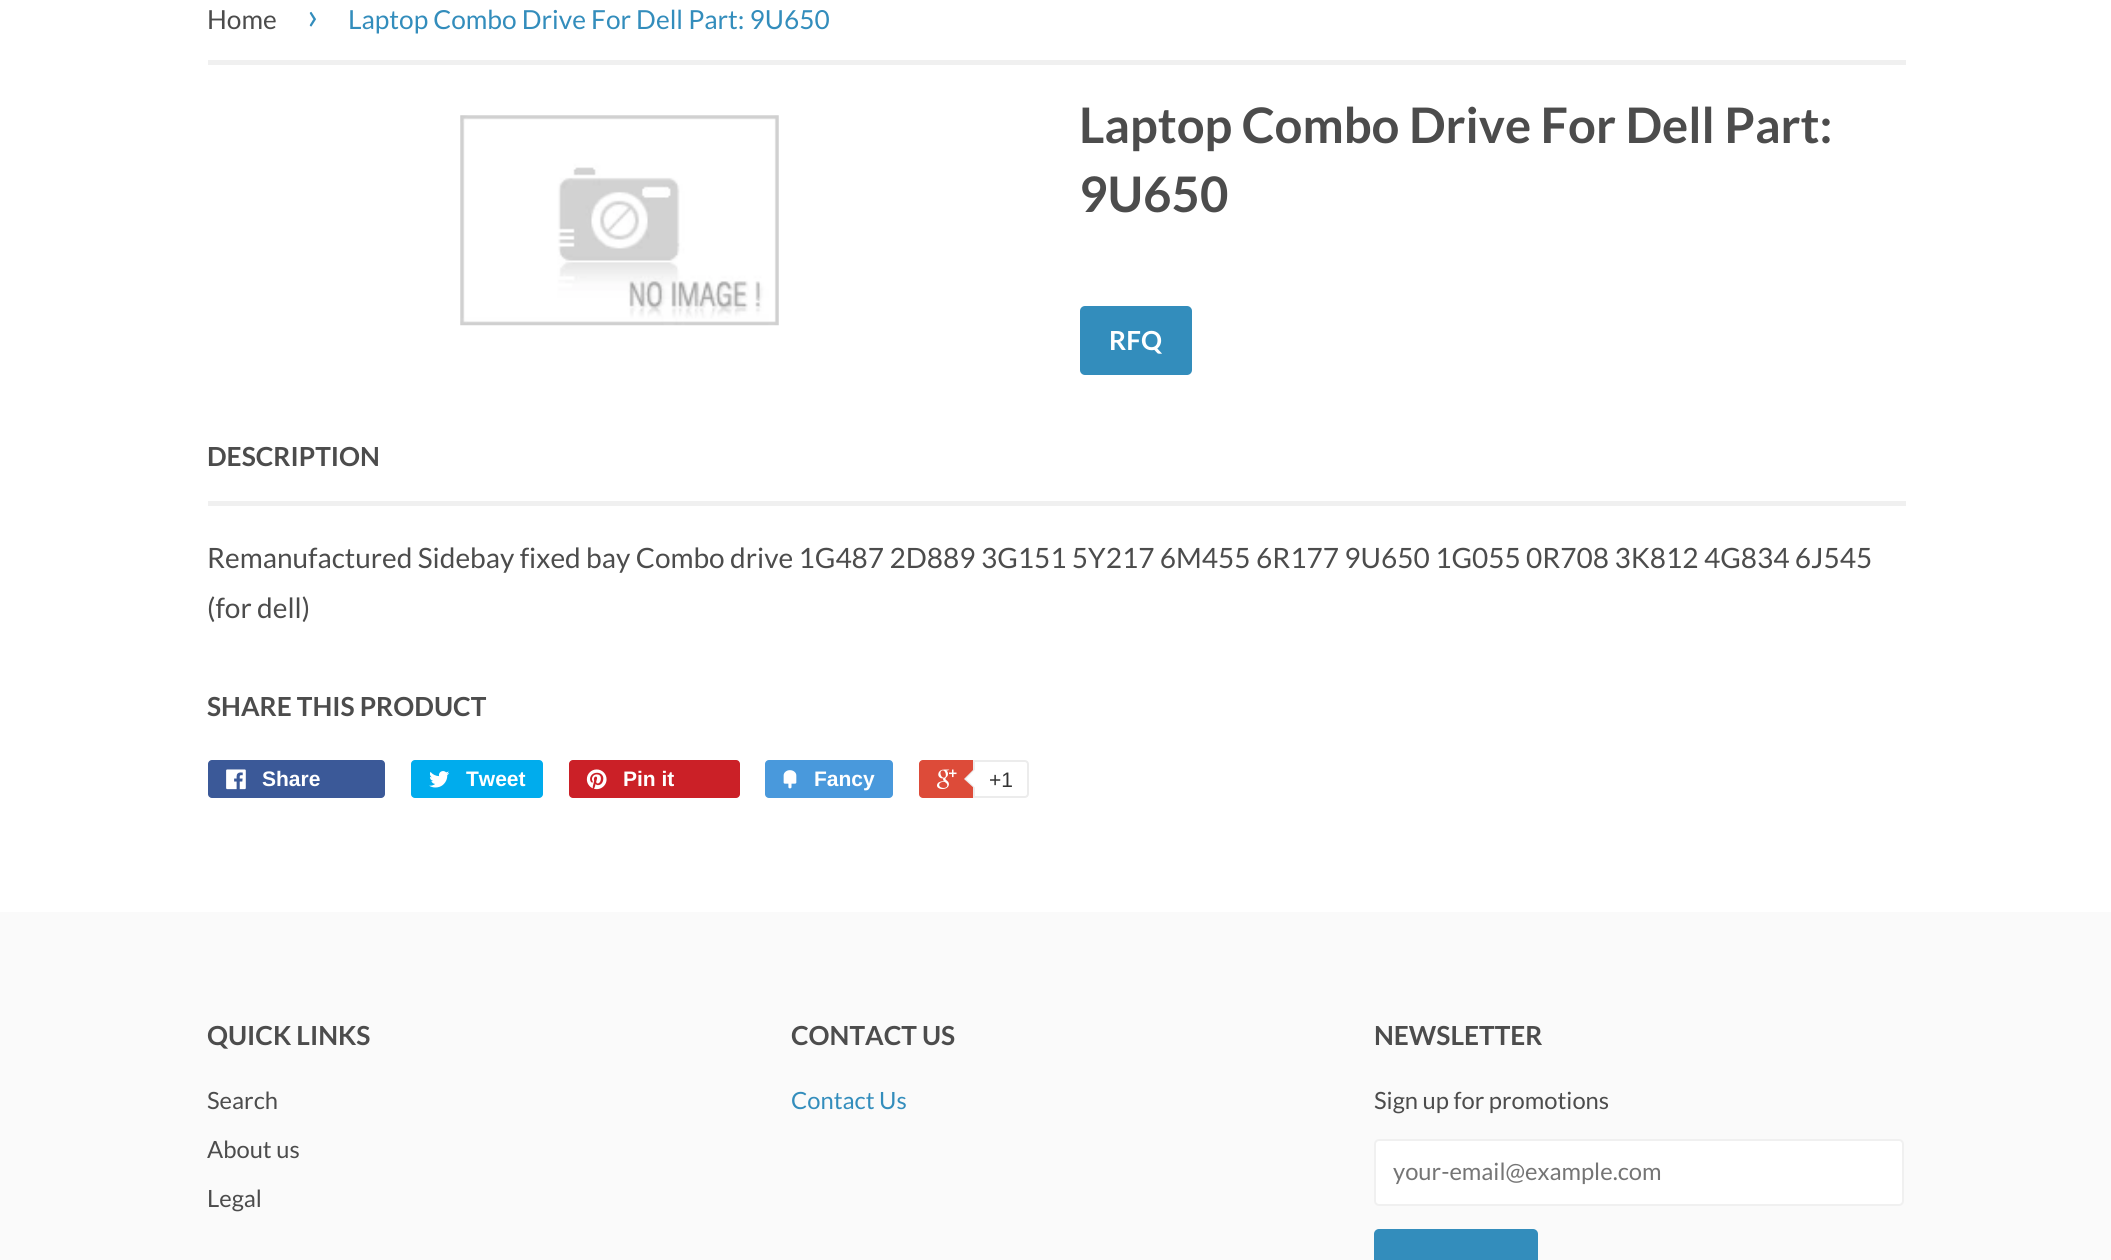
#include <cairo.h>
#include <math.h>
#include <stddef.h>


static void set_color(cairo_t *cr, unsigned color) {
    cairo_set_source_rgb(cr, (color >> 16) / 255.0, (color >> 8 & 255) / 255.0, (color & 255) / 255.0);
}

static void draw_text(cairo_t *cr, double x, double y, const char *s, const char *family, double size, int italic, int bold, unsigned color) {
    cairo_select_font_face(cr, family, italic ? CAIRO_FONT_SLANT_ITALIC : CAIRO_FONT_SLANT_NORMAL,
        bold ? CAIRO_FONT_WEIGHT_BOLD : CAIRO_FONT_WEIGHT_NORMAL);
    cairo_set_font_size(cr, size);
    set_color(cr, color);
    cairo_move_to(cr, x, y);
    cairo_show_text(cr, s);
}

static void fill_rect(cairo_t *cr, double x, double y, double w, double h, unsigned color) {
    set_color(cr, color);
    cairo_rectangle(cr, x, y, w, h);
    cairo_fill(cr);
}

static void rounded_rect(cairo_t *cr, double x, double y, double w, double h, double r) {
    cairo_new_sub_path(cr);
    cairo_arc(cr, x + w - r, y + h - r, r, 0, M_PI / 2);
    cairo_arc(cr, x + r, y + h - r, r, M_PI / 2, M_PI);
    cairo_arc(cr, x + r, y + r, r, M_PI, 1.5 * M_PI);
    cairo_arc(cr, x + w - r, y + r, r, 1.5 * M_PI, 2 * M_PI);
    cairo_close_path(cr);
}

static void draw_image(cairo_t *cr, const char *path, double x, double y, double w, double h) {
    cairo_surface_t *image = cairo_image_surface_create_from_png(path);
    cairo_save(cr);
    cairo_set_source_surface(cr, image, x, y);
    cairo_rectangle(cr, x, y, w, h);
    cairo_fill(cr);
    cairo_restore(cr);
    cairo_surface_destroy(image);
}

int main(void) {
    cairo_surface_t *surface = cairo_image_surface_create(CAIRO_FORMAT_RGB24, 2111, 1260);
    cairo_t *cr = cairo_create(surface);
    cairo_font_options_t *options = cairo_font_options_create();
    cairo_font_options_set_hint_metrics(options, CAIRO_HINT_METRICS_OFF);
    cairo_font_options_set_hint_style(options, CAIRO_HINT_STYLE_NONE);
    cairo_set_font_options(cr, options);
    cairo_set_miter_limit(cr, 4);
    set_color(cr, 0xFFFFFF);
    cairo_paint(cr);
    fill_rect(cr, 208, 60, 1698, 5, 0xF0F0F0);
    draw_text(cr, 207, 29, "Home", "Lato", 26.25, 0, 0, 0x4C4C4C);
    draw_text(cr, 307, 29, "›", "Lato", 37, 0, 0, 0x338DBC);
    draw_text(cr, 348, 29, "Laptop Combo Drive For Dell Part: 9U650", "Lato", 26.25, 0, 0, 0x338DBC);
    draw_image(cr, "assets/img1.png", 460, 115, 319, 211);
    draw_text(cr, 1079, 143, "Laptop Combo Drive For Dell Part:", "Lato", 49, 0, 1, 0x4C4C4C);
    draw_text(cr, 1079, 212, "9U650", "Lato", 49, 0, 1, 0x4C4C4C);
    set_color(cr, 0x338DBC);
    rounded_rect(cr, 1080, 306, 112, 69, 5);
    cairo_fill(cr);
    draw_text(cr, 1109, 350, "RFQ", "Lato", 26.25, 0, 1, 0xFFFFFF);
    fill_rect(cr, 208, 501, 1698, 5, 0xF0F0F0);
    draw_text(cr, 207, 466, "DESCRIPTION", "Lato", 26.25, 0, 1, 0x4C4C4C);
    draw_text(cr, 207, 568, "Remanufactured Sidebay fixed bay Combo drive 1G487 2D889 3G151 5Y217 6M455 6R177 9U650 1G055 0R708 3K812 4G834 6J545", "Lato", 28, 0, 0, 0x4C4C4C);
    draw_text(cr, 207, 618, "(for dell)", "Lato", 28, 0, 0, 0x4C4C4C);
    draw_text(cr, 207, 716, "SHARE THIS PRODUCT", "Lato", 26.25, 0, 1, 0x4C4C4C);
    set_color(cr, 0x3B5998);
    rounded_rect(cr, 208, 760, 177, 38, 4);
    cairo_fill(cr);
    draw_image(cr, "assets/img2.png", 226, 769, 20, 21);
    draw_text(cr, 262, 786, "Share", "Liberation Sans", 21, 0, 1, 0xFFFFFF);
    set_color(cr, 0x00ACED);
    rounded_rect(cr, 411, 760, 132, 38, 4);
    cairo_fill(cr);
    draw_image(cr, "assets/img3.png", 429, 771, 21, 17);
    draw_text(cr, 466, 786, "Tweet", "Liberation Sans", 21, 0, 1, 0xFFFFFF);
    set_color(cr, 0xCB2027);
    rounded_rect(cr, 569, 760, 171, 38, 4);
    cairo_fill(cr);
    draw_image(cr, "assets/img4.png", 586, 769, 21, 21);
    draw_text(cr, 623, 786, "Pin it", "Liberation Sans", 21, 0, 1, 0xFFFFFF);
    set_color(cr, 0x4999DC);
    rounded_rect(cr, 765, 760, 128, 38, 4);
    cairo_fill(cr);
    draw_image(cr, "assets/img5.png", 783, 770, 14, 19);
    draw_text(cr, 814, 786, "Fancy", "Liberation Sans", 21, 0, 1, 0xFFFFFF);
    set_color(cr, 0xDD4B39);
    rounded_rect(cr, 919, 760, 107, 38, 4);
    cairo_fill(cr);
    draw_image(cr, "assets/img6.png", 937, 769, 20, 20);
    set_color(cr, 0xFFFFFF);
    cairo_new_path(cr);
    cairo_move_to(cr, 974, 761);
    cairo_line_to(cr, 1025, 761);
    cairo_curve_to(cr, 1026.5, 761, 1028, 762.5, 1028, 764);
    cairo_line_to(cr, 1028, 794);
    cairo_curve_to(cr, 1028, 795.5, 1026.5, 797, 1025, 797);
    cairo_line_to(cr, 974, 797);
    cairo_close_path(cr);
    cairo_fill_preserve(cr);
    set_color(cr, 0xECECEC);
    cairo_stroke(cr);
    cairo_new_path(cr);
    cairo_move_to(cr, 975, 768);
    cairo_line_to(cr, 975, 789);
    cairo_line_to(cr, 964, 779);
    cairo_close_path(cr);
    cairo_fill(cr);
    set_color(cr, 0xFFFFFF);
    cairo_new_path(cr);
    cairo_move_to(cr, 976.5, 768);
    cairo_line_to(cr, 976.5, 789);
    cairo_line_to(cr, 966, 779);
    cairo_close_path(cr);
    cairo_fill(cr);
    draw_text(cr, 989, 787, "+1", "Liberation Sans", 21, 0, 0, 0x333333);
    fill_rect(cr, 0, 912, 2111, 348, 0xFAFAFA);
    draw_text(cr, 207, 1045, "QUICK LINKS", "Lato", 26.25, 0, 1, 0x4C4C4C);
    draw_text(cr, 207, 1109, "Search", "Lato", 23.75, 0, 0, 0x4C4C4C);
    draw_text(cr, 207, 1158, "About us", "Lato", 23.75, 0, 0, 0x4C4C4C);
    draw_text(cr, 207, 1207, "Legal", "Lato", 23.75, 0, 0, 0x4C4C4C);
    draw_text(cr, 791, 1045, "CONTACT US", "Lato", 26.25, 0, 1, 0x4C4C4C);
    draw_text(cr, 791, 1109, "Contact Us", "Lato", 23.75, 0, 0, 0x338DBC);
    draw_text(cr, 1374, 1045, "NEWSLETTER", "Lato", 26.25, 0, 1, 0x4C4C4C);
    draw_text(cr, 1374, 1109, "Sign up for promotions", "Lato", 23.75, 0, 0, 0x4C4C4C);
    set_color(cr, 0xFFFFFF);
    rounded_rect(cr, 1375, 1140, 528, 65, 4);
    cairo_fill_preserve(cr);
    set_color(cr, 0xF0F0F0);
    cairo_stroke(cr);
    draw_text(cr, 1393, 1180, "your-email@example.com", "Lato", 23.75, 0, 0, 0x757575);
    set_color(cr, 0x338DBC);
    rounded_rect(cr, 1374, 1229, 164, 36, 5);
    cairo_fill(cr);
    cairo_surface_write_to_png(surface, "output.png");
    cairo_font_options_destroy(options);
    cairo_destroy(cr);
    cairo_surface_destroy(surface);
    return 0;
}
